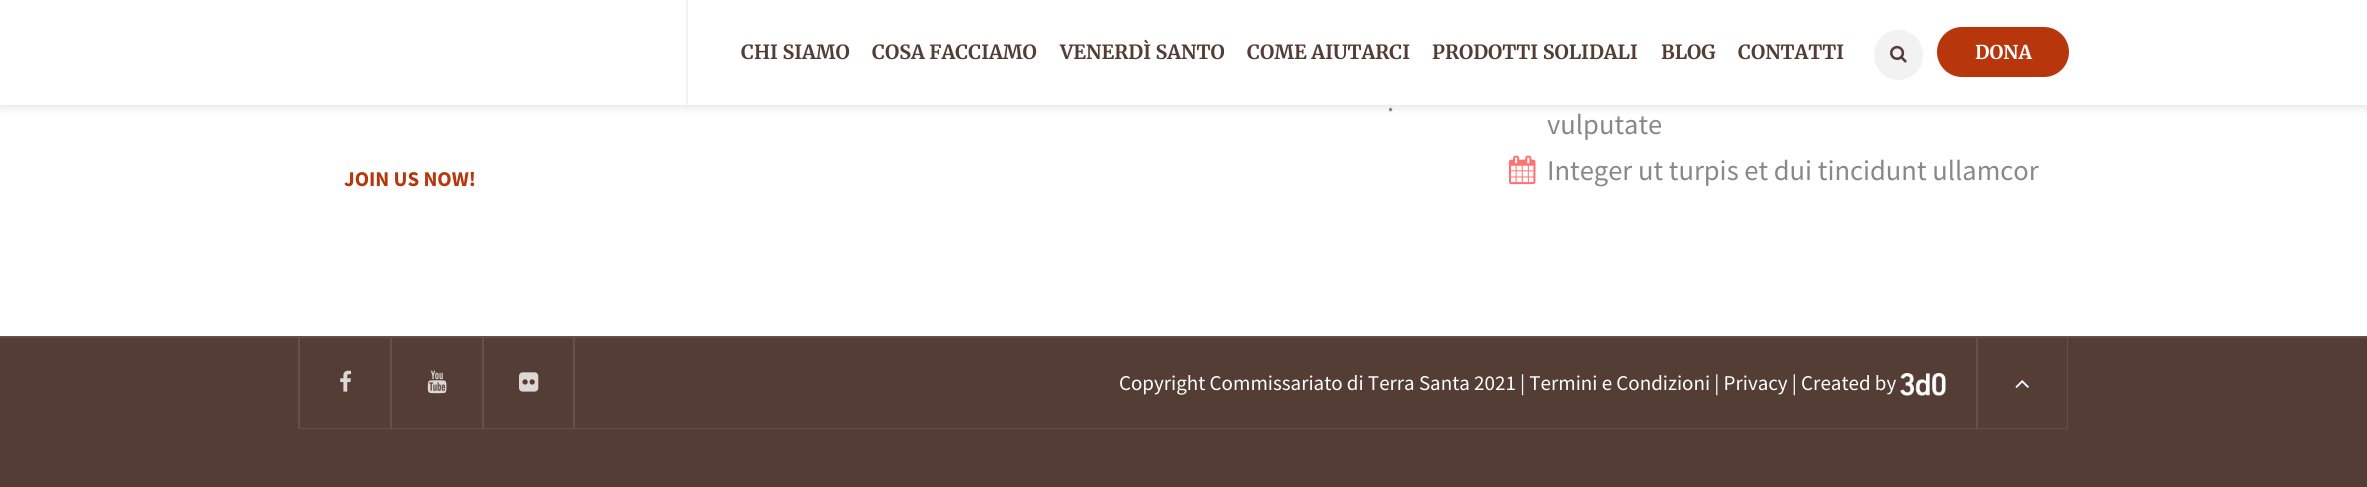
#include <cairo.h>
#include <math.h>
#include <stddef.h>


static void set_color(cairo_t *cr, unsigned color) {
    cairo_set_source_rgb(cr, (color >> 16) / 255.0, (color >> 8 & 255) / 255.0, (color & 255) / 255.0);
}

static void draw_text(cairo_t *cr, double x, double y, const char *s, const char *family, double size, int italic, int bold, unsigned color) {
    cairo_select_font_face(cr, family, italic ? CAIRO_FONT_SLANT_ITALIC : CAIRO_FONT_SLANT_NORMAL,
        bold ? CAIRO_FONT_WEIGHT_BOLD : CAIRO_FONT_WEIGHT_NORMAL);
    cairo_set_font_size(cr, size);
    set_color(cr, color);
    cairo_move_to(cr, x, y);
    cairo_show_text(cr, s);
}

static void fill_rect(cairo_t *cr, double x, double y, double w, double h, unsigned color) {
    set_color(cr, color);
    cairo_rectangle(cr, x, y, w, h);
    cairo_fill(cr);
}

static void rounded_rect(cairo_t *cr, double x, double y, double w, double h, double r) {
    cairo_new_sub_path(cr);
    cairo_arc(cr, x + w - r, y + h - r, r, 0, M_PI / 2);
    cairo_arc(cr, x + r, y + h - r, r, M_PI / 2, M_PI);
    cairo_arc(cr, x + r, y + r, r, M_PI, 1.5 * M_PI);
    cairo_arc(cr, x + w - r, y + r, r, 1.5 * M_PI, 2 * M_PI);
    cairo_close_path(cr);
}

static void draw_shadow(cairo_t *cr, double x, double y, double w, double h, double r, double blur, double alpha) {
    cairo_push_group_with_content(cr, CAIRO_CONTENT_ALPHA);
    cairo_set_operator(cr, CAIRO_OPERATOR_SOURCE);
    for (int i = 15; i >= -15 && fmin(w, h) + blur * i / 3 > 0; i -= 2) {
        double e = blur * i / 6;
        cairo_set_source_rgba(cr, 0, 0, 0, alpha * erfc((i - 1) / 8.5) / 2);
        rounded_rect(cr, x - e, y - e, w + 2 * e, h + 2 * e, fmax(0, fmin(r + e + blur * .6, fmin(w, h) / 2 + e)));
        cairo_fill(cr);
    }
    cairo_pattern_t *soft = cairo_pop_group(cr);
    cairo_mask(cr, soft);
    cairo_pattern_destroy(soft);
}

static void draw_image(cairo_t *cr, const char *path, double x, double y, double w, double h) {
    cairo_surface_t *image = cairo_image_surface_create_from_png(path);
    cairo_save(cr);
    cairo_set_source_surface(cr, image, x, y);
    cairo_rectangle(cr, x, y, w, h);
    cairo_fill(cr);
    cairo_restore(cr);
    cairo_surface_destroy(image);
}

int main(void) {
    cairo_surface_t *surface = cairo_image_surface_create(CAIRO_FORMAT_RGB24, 2367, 487);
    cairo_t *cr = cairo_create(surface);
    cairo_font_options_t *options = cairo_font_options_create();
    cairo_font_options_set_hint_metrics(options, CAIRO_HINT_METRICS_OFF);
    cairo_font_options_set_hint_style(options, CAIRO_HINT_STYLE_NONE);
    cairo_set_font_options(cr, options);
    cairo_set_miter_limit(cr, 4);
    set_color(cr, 0xFFFFFF);
    cairo_paint(cr);
    set_color(cr, 0x000000);
    draw_shadow(cr, 0, 3, 2367, 105, 0, 4, 0.1);
    fill_rect(cr, 0, 0, 2367, 105, 0xFFFFFF);
    fill_rect(cr, 686, 0, 2, 105, 0xF2F2F2);
    draw_text(cr, 741, 59, "CHI SIAMO", "Merriweather Light", 19.5, 0, 0, 0x533D34);
    draw_text(cr, 872, 59, "COSA FACCIAMO", "Merriweather Light", 19.5, 0, 0, 0x533D34);
    draw_text(cr, 1060, 59, "VENERDÌ SANTO", "Merriweather Light", 19.5, 0, 0, 0x533D34);
    draw_text(cr, 1247, 59, "COME AIUTARCI", "Merriweather Light", 19.5, 0, 0, 0x533D34);
    draw_text(cr, 1432, 59, "PRODOTTI SOLIDALI", "Merriweather Light", 19.5, 0, 0, 0x533D34);
    draw_text(cr, 1661, 59, "BLOG", "Merriweather Light", 19.5, 0, 0, 0x533D34);
    draw_text(cr, 1738, 59, "CONTATTI", "Merriweather Light", 19.5, 0, 0, 0x533D34);
    set_color(cr, 0xF2F2F2);
    rounded_rect(cr, 1874, 30, 49, 50, 24.5);
    cairo_fill(cr);
    draw_image(cr, "assets/img1.png", 1890, 45, 17, 18);
    set_color(cr, 0xB8360C);
    rounded_rect(cr, 1937, 27, 132, 50, 25);
    cairo_fill(cr);
    draw_text(cr, 1975, 59, "DONA", "Merriweather Light", 19, 0, 0, 0xFFFFFF);
    draw_text(cr, 1387, 111, ".", "Source Sans Pro", 28.5, 0, 0, 0x888888);
    draw_text(cr, 344, 186, "JOIN US NOW!", "Source Sans Pro", 21, 0, 1, 0xB8360C);
    draw_text(cr, 1547, 134, "vulputate", "Source Sans Pro", 28.5, 0, 0, 0x888888);
    draw_image(cr, "assets/img2.png", 1509, 155, 27, 30);
    draw_text(cr, 1547, 180, "Integer ut turpis et dui tincidunt ullamcor", "Source Sans Pro", 28.5, 0, 0, 0x888888);
    fill_rect(cr, 0, 338, 2367, 149, 0x533D34);
    fill_rect(cr, 0, 336, 2367, 2, 0x645048);
    cairo_new_path(cr);
    cairo_move_to(cr, 2068, 338);
    cairo_line_to(cr, 2068, 429);
    cairo_line_to(cr, 2067, 428);
    cairo_line_to(cr, 2067, 338);
    cairo_close_path(cr);
    cairo_fill(cr);
    cairo_set_source_rgba(cr, 1, 1, 1, 0.1);
    cairo_new_path(cr);
    cairo_move_to(cr, 2068, 429);
    cairo_line_to(cr, 298, 429);
    cairo_line_to(cr, 300, 428);
    cairo_line_to(cr, 2067, 428);
    cairo_close_path(cr);
    cairo_fill(cr);
    cairo_new_path(cr);
    cairo_move_to(cr, 298, 429);
    cairo_line_to(cr, 298, 338);
    cairo_line_to(cr, 300, 338);
    cairo_line_to(cr, 300, 428);
    cairo_close_path(cr);
    cairo_fill(cr);
    fill_rect(cr, 390, 338, 2, 90, 0x645048);
    draw_image(cr, "assets/img3.png", 340, 370, 12, 22);
    fill_rect(cr, 482, 338, 2, 90, 0x645048);
    draw_image(cr, "assets/img4.png", 427, 370, 20, 24);
    fill_rect(cr, 573, 338, 2, 90, 0x645048);
    draw_image(cr, "assets/img5.png", 519, 372, 20, 20);
    draw_text(cr, 1119, 390, "Copyright Commissariato di Terra Santa 2021 | Termini e Condizioni | Privacy | Created by", "Source Sans Pro", 21, 0, 0, 0xFFFFFF);
    draw_image(cr, "assets/img6.png", 1900, 373, 46, 23);
    fill_rect(cr, 1976, 338, 2, 90, 0x645048);
    draw_image(cr, "assets/img7.png", 2015, 380, 14, 8);
    cairo_surface_write_to_png(surface, "output.png");
    cairo_font_options_destroy(options);
    cairo_destroy(cr);
    cairo_surface_destroy(surface);
    return 0;
}
